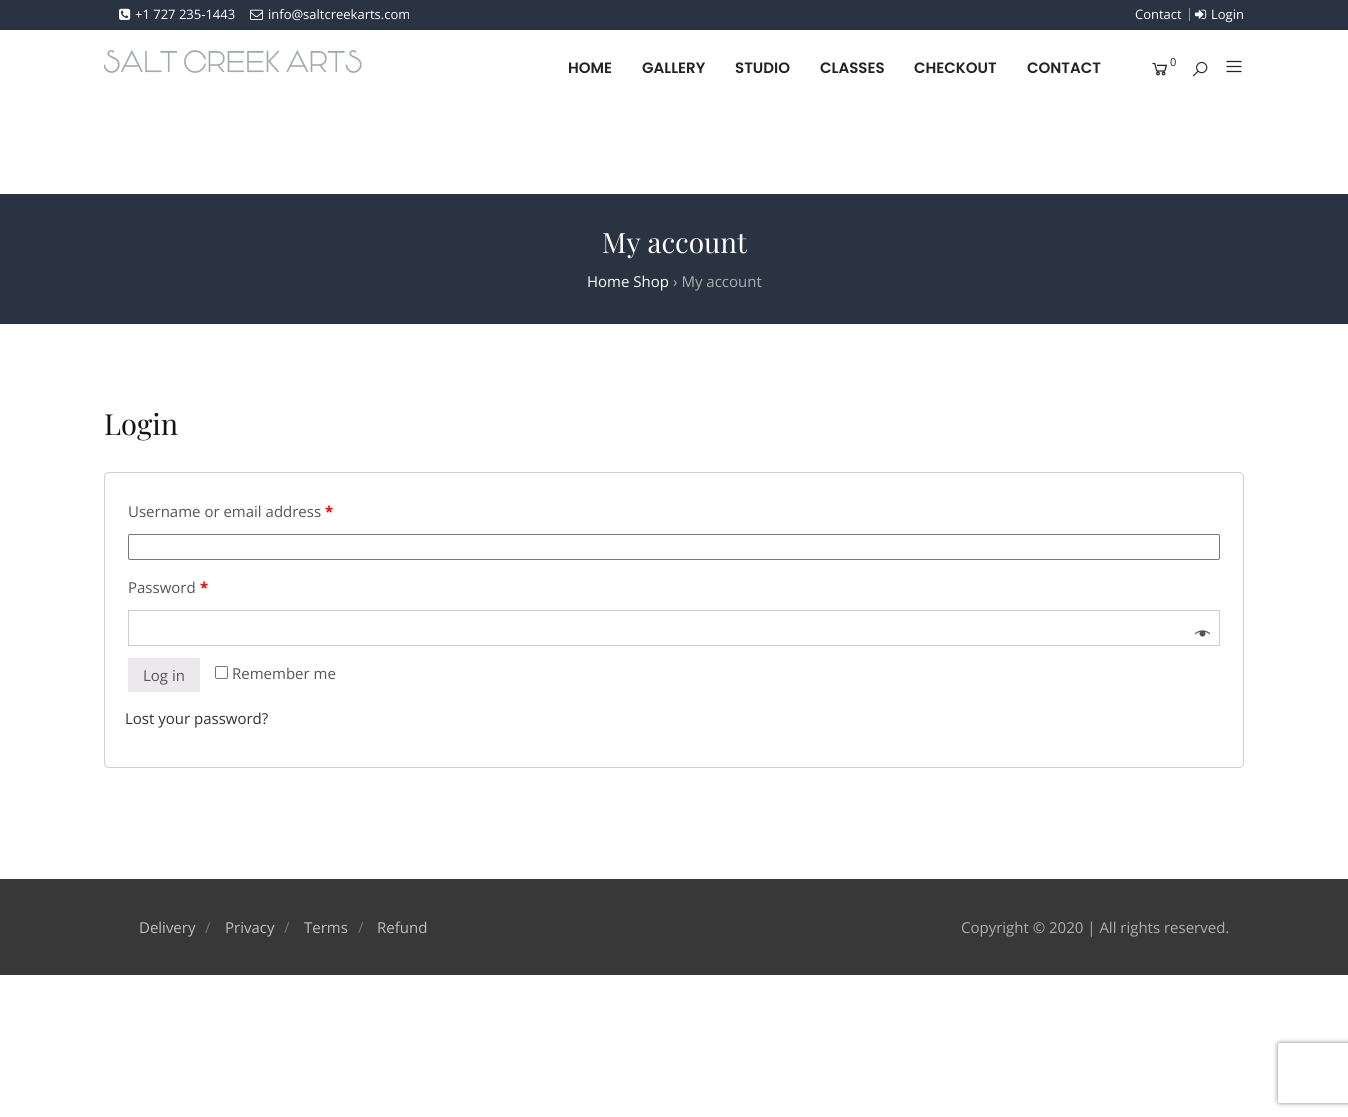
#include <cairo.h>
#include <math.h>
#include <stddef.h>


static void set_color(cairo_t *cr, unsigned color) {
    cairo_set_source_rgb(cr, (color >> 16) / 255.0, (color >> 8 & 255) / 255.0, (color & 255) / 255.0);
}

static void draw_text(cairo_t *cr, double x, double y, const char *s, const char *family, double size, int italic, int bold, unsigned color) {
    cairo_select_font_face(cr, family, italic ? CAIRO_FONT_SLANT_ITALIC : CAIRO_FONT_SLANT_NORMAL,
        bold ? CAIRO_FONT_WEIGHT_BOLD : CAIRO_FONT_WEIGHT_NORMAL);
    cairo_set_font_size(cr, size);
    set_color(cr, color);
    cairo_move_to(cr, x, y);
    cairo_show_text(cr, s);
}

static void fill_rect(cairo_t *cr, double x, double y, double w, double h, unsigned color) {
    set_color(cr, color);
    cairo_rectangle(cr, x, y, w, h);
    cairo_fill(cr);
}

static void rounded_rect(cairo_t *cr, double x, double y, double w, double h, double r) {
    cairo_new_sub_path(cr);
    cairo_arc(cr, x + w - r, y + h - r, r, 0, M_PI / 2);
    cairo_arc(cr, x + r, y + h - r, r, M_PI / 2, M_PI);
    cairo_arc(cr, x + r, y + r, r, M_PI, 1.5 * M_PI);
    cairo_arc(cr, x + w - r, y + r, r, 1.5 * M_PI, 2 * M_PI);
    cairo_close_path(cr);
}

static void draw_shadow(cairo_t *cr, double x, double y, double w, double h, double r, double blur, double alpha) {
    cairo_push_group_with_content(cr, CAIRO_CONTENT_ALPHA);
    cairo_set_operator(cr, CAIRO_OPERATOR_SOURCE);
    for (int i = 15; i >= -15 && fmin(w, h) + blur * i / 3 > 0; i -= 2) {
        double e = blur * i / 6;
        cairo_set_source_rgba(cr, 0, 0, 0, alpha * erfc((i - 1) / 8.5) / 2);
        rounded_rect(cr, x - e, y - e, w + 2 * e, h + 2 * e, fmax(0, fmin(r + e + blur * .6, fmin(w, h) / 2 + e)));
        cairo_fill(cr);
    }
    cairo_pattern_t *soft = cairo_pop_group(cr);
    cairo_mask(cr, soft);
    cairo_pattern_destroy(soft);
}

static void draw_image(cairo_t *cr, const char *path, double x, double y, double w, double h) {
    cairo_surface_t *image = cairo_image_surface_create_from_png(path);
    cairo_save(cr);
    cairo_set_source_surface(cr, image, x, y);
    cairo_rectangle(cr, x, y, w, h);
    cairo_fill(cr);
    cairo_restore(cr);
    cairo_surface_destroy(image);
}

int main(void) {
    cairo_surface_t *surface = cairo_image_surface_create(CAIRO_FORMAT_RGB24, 1348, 1117);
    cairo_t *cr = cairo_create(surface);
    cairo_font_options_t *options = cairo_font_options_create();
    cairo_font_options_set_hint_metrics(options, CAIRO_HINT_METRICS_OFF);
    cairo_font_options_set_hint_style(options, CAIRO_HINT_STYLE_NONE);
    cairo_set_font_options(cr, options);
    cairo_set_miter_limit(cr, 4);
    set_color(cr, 0xFFFFFF);
    cairo_paint(cr);
    fill_rect(cr, 0, 0, 1348, 29, 0x293341);
    fill_rect(cr, 0, 29, 1348, 1, 0x252E3B);
    draw_image(cr, "assets/img1.png", 119, 8, 12, 12);
    draw_text(cr, 135, 19, "+1 727 235-1443", "Open Sans", 13, 0, 0, 0xFFFFFF);
    draw_image(cr, "assets/img2.png", 250, 9, 13, 11);
    draw_text(cr, 268, 19, "info@saltcreekarts.com", "Open Sans", 13, 0, 0, 0xFFFFFF);
    fill_rect(cr, 1189, 8, 1, 13, 0x999999);
    draw_text(cr, 1135, 19, "Contact", "Open Sans", 13, 0, 0, 0xFFFFFF);
    draw_image(cr, "assets/img3.png", 1195, 9, 12, 10);
    draw_text(cr, 1211, 19, "Login", "Open Sans", 13, 0, 0, 0xFFFFFF);
    draw_image(cr, "assets/img4.png", 104, 50, 258, 23);
    draw_text(cr, 568, 73, "HOME", "Poppins SemiBold", 15, 0, 0, 0x222222);
    draw_text(cr, 642, 73, "GALLERY", "Poppins SemiBold", 15, 0, 0, 0x222222);
    draw_text(cr, 735, 73, "STUDIO", "Poppins SemiBold", 15, 0, 0, 0x222222);
    draw_text(cr, 820, 73, "CLASSES", "Poppins SemiBold", 15, 0, 0, 0x222222);
    draw_text(cr, 914, 73, "CHECKOUT", "Poppins SemiBold", 15, 0, 0, 0x222222);
    draw_text(cr, 1027, 73, "CONTACT", "Poppins SemiBold", 15, 0, 0, 0x222222);
    draw_image(cr, "assets/img5.png", 1152, 62, 16, 14);
    draw_text(cr, 1170, 66, "0", "Open Sans", 11, 0, 0, 0x222222);
    draw_image(cr, "assets/img6.png", 1192, 61, 16, 16);
    draw_image(cr, "assets/img7.png", 1226, 60, 16, 13);
    fill_rect(cr, 0, 194, 1348, 130, 0x293341);
    draw_text(cr, 602, 253, "My account", "Playfair Display", 28, 0, 0, 0xFFFFFF);
    draw_text(cr, 587, 287, "Home Shop", "Open Sans", 15, 0, 0, 0xFFFFFF);
    draw_text(cr, 673, 287, "› My account", "Open Sans", 15, 0, 0, 0xADADAD);
    draw_text(cr, 104, 435, "Login", "Playfair Display", 29, 0, 0, 0x121212);
    rounded_rect(cr, 104.5, 472.5, 1139, 295, 4.5);
    set_color(cr, 0xD3CED2);
    cairo_set_line_width(cr, 1);
    cairo_stroke(cr);
    draw_text(cr, 128, 517, "Username or email address", "Open Sans", 15, 0, 0, 0x555555);
    draw_text(cr, 325, 517, "*", "Open Sans", 15, 0, 1, 0xFF0000);
    rounded_rect(cr, 128.5, 534.5, 1091, 25, 1.5);
    set_color(cr, 0x767676);
    cairo_stroke(cr);
    draw_text(cr, 128, 593, "Password", "Open Sans", 15, 0, 0, 0x555555);
    draw_text(cr, 200, 593, "*", "Open Sans", 15, 0, 1, 0xFF0000);
    cairo_rectangle(cr, 128.5, 610.5, 1091, 35);
    set_color(cr, 0xCECECE);
    cairo_stroke(cr);
    draw_image(cr, "assets/img8.png", 1195, 630, 15, 7);
    fill_rect(cr, 128, 658, 72, 34, 0xEBE9EB);
    draw_text(cr, 143, 681, "Log in", "Open Sans", 15, 0, 0, 0x555555);
    rounded_rect(cr, 215.5, 666.5, 12, 12, 1.5);
    set_color(cr, 0x767676);
    cairo_stroke(cr);
    draw_text(cr, 232, 679, "Remember me", "Open Sans", 15, 0, 0, 0x555555);
    draw_text(cr, 125, 724, "Lost your password?", "Open Sans", 15, 0, 0, 0x293341);
    fill_rect(cr, 0, 879, 1348, 96, 0x383838);
    draw_text(cr, 139, 933, "Delivery", "Open Sans", 15, 0, 0, 0xBFBFBF);
    draw_text(cr, 205, 933, "/", "Open Sans", 15, 0, 0, 0x777272);
    draw_text(cr, 225, 933, "Privacy", "Open Sans", 15, 0, 0, 0xBFBFBF);
    draw_text(cr, 284, 933, "/", "Open Sans", 15, 0, 0, 0x777272);
    draw_text(cr, 304, 933, "Terms", "Open Sans", 15, 0, 0, 0xBFBFBF);
    draw_text(cr, 358, 933, "/", "Open Sans", 15, 0, 0, 0x777272);
    draw_text(cr, 377, 933, "Refund", "Open Sans", 15, 0, 0, 0xBFBFBF);
    draw_text(cr, 961, 933, "Copyright © 2020 | All rights reserved.", "Open Sans", 15, 0, 0, 0xADADAD);
    cairo_save(cr);
    cairo_set_fill_rule(cr, CAIRO_FILL_RULE_EVEN_ODD);
    cairo_new_path(cr);
    cairo_move_to(cr, 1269, 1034);
    cairo_line_to(cr, 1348, 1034);
    cairo_line_to(cr, 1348, 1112);
    cairo_line_to(cr, 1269, 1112);
    cairo_close_path(cr);
    cairo_move_to(cr, 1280, 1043);
    cairo_line_to(cr, 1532, 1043);
    cairo_curve_to(cr, 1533, 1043, 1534, 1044, 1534, 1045);
    cairo_line_to(cr, 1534, 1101);
    cairo_curve_to(cr, 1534, 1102, 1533, 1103, 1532, 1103);
    cairo_line_to(cr, 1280, 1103);
    cairo_curve_to(cr, 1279, 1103, 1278, 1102, 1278, 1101);
    cairo_line_to(cr, 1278, 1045);
    cairo_curve_to(cr, 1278, 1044, 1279, 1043, 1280, 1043);
    cairo_close_path(cr);
    cairo_clip(cr);
    set_color(cr, 0x808080);
    draw_shadow(cr, 1278, 1043, 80, 60, 2, 2.5, 1);
    cairo_restore(cr);
    cairo_surface_write_to_png(surface, "output.png");
    cairo_font_options_destroy(options);
    cairo_destroy(cr);
    cairo_surface_destroy(surface);
    return 0;
}
